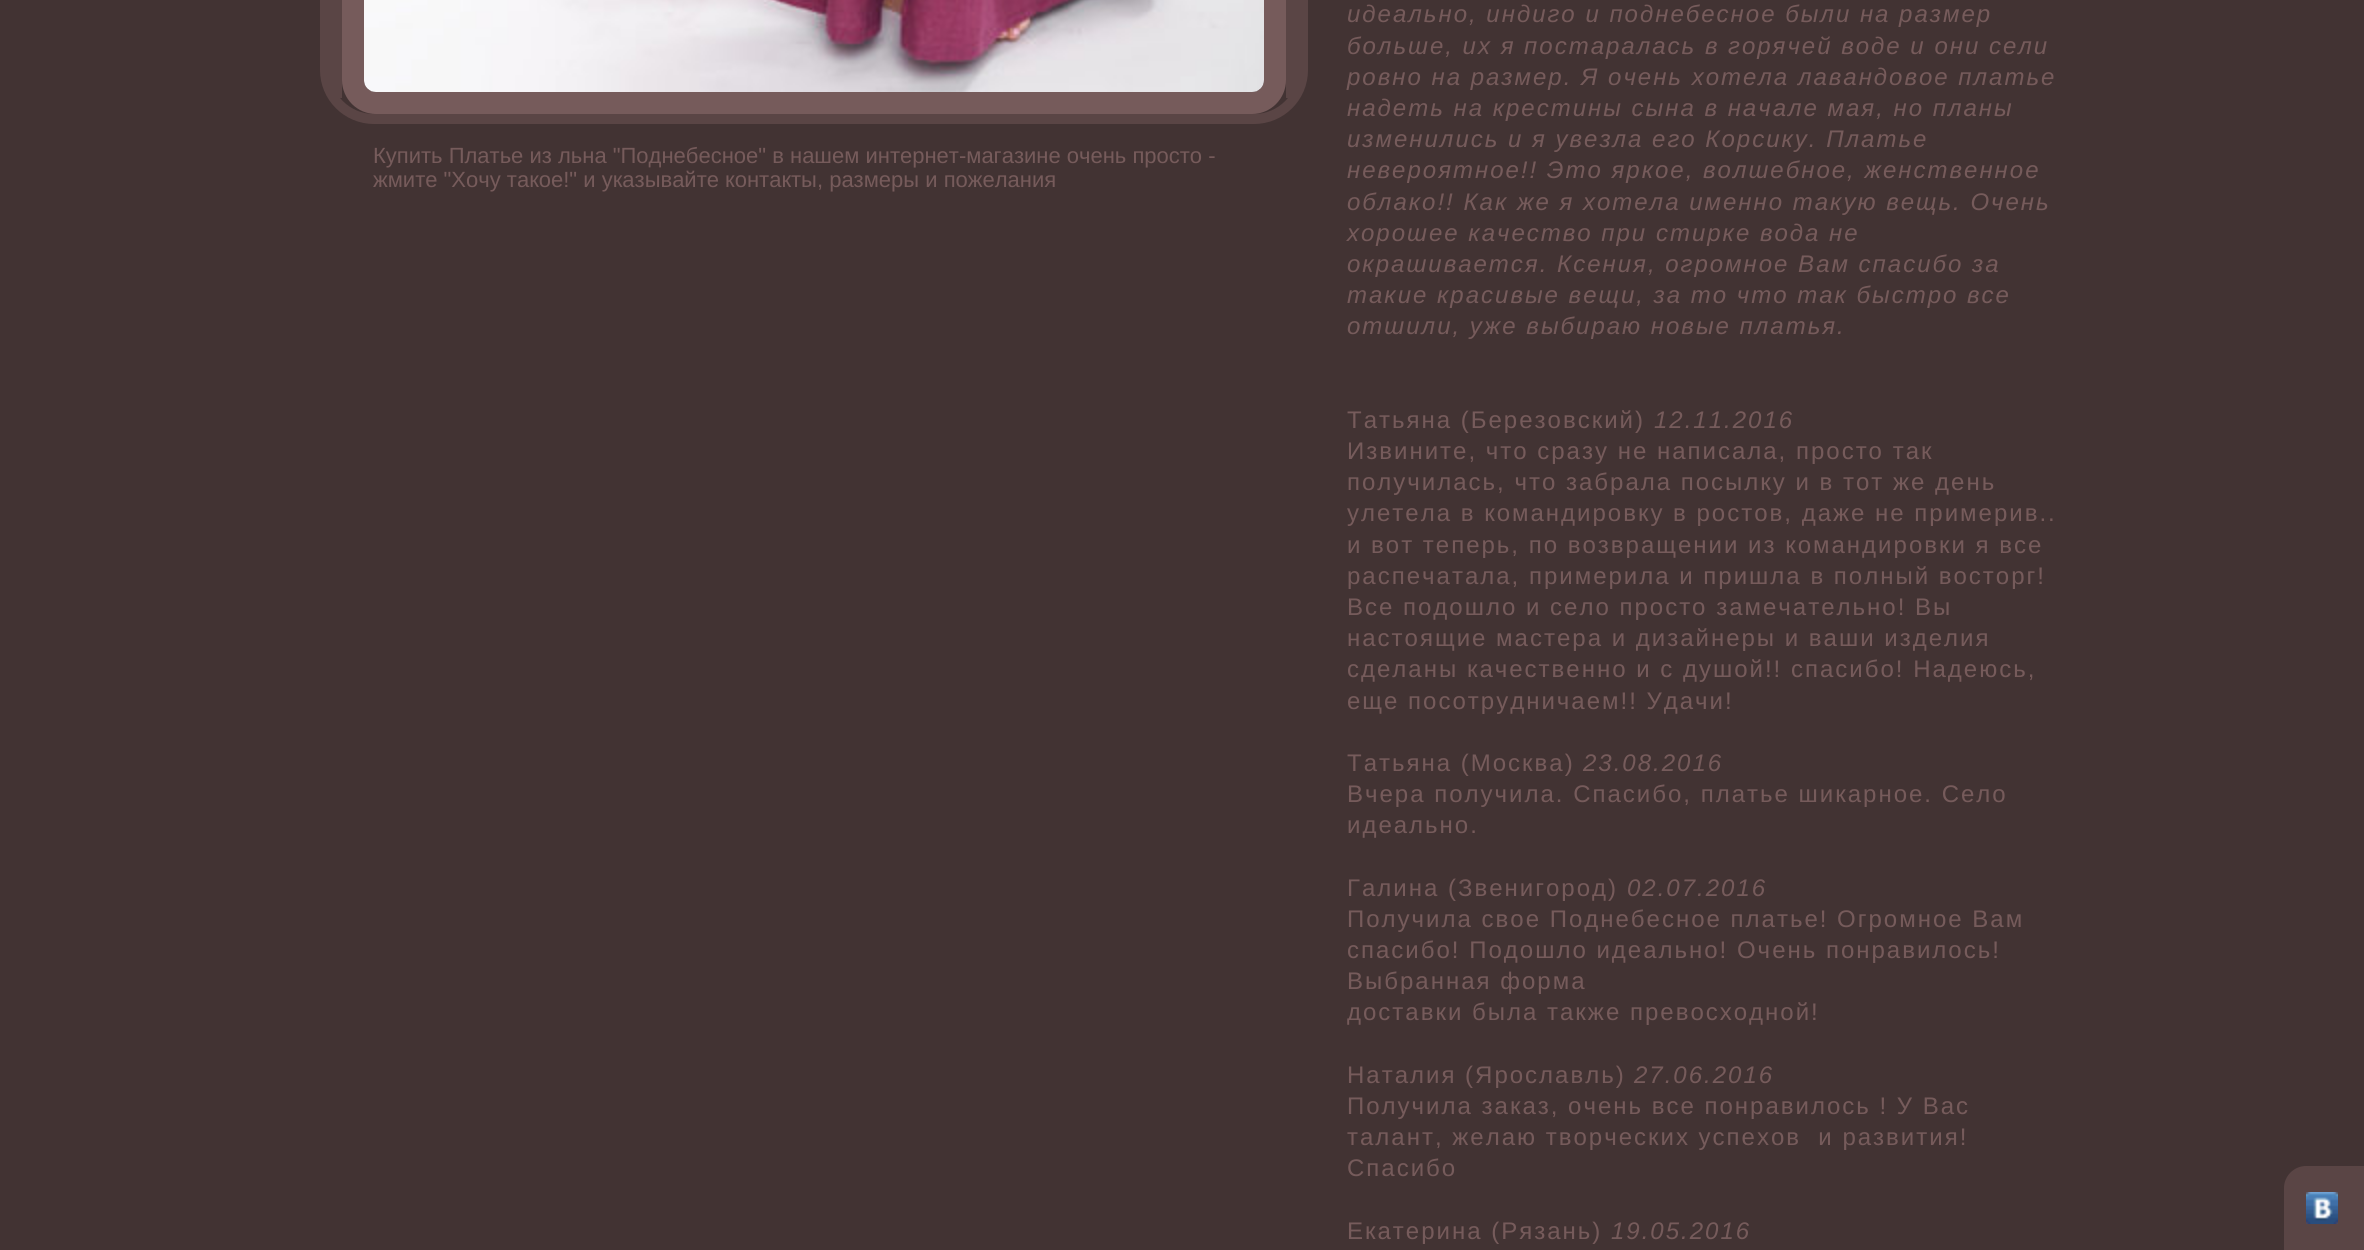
#include <cairo.h>
#include <math.h>
#include <stddef.h>


static void set_color(cairo_t *cr, unsigned color) {
    cairo_set_source_rgb(cr, (color >> 16) / 255.0, (color >> 8 & 255) / 255.0, (color & 255) / 255.0);
}

static void draw_text(cairo_t *cr, double x, double y, const char *s, const char *family, double size, int italic, int bold, unsigned color) {
    cairo_select_font_face(cr, family, italic ? CAIRO_FONT_SLANT_ITALIC : CAIRO_FONT_SLANT_NORMAL,
        bold ? CAIRO_FONT_WEIGHT_BOLD : CAIRO_FONT_WEIGHT_NORMAL);
    cairo_set_font_size(cr, size);
    set_color(cr, color);
    cairo_move_to(cr, x, y);
    cairo_show_text(cr, s);
}

static void draw_spaced(cairo_t *cr, double x, double y, const char *s, double letter, double word) {
    cairo_move_to(cr, x, y);
    while (*s) {
        char ch[5] = {0};
        int n = 0;
        do ch[n++] = *s++; while ((*s & 0xC0) == 0x80);
        cairo_show_text(cr, ch);
        cairo_rel_move_to(cr, letter + word * (*ch == ' '), 0);
    }
}

static void fill_rect(cairo_t *cr, double x, double y, double w, double h, unsigned color) {
    set_color(cr, color);
    cairo_rectangle(cr, x, y, w, h);
    cairo_fill(cr);
}

static void rounded_rect(cairo_t *cr, double x, double y, double w, double h, double r) {
    cairo_new_sub_path(cr);
    cairo_arc(cr, x + w - r, y + h - r, r, 0, M_PI / 2);
    cairo_arc(cr, x + r, y + h - r, r, M_PI / 2, M_PI);
    cairo_arc(cr, x + r, y + r, r, M_PI, 1.5 * M_PI);
    cairo_arc(cr, x + w - r, y + r, r, 1.5 * M_PI, 2 * M_PI);
    cairo_close_path(cr);
}

static void draw_image(cairo_t *cr, const char *path, double x, double y, double w, double h) {
    cairo_surface_t *image = cairo_image_surface_create_from_png(path);
    cairo_save(cr);
    cairo_set_source_surface(cr, image, x, y);
    cairo_rectangle(cr, x, y, w, h);
    cairo_fill(cr);
    cairo_restore(cr);
    cairo_surface_destroy(image);
}

int main(void) {
    cairo_surface_t *surface = cairo_image_surface_create(CAIRO_FORMAT_RGB24, 2364, 1250);
    cairo_t *cr = cairo_create(surface);
    cairo_font_options_t *options = cairo_font_options_create();
    cairo_font_options_set_hint_metrics(options, CAIRO_HINT_METRICS_OFF);
    cairo_font_options_set_hint_style(options, CAIRO_HINT_STYLE_NONE);
    cairo_set_font_options(cr, options);
    cairo_set_miter_limit(cr, 4);
    set_color(cr, 0x423333);
    cairo_paint(cr);
    rounded_rect(cr, 325, -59, 978, 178, 49);
    set_color(cr, 0x5A4545);
    cairo_set_line_width(cr, 10);
    cairo_stroke(cr);
    fill_rect(cr, 1286, 0, 12, 98, 0x5A4545);
    fill_rect(cr, 330, 0, 12, 98, 0x5A4545);
    rounded_rect(cr, 353, -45, 922, 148, 23);
    set_color(cr, 0x765B5B);
    cairo_set_line_width(cr, 22);
    cairo_stroke(cr);
    draw_image(cr, "assets/img1.png", 364, 0, 900, 92);
    draw_text(cr, 373, 163, "Купить Платье из льна \"Поднебесное\" в нашем интернет-магазине очень просто -", "Liberation Sans", 22, 0, 0, 0x765B5B);
    draw_text(cr, 373, 187, "жмите \"Хочу такое!\" и указывайте контакты, размеры и пожелания", "Liberation Sans", 22, 0, 0, 0x765B5B);
    cairo_select_font_face(cr, "Liberation Sans", CAIRO_FONT_SLANT_ITALIC, CAIRO_FONT_WEIGHT_NORMAL);
    cairo_set_font_size(cr, 24);
    draw_spaced(cr, 1347, 22, "идеально, индиго и поднебесное были на размер", 2, 0);
    draw_spaced(cr, 1347, 54, "больше, их я постаралась в горячей воде и они сели", 2, 0);
    draw_spaced(cr, 1347, 85, "ровно на размер. Я очень хотела лавандовое платье", 2, 0);
    draw_spaced(cr, 1347, 116, "надеть на крестины сына в начале мая, но планы", 2, 0);
    draw_spaced(cr, 1347, 147, "изменились и я увезла его Корсику. Платье", 2, 0);
    draw_spaced(cr, 1347, 178, "невероятное!! Это яркое, волшебное, женственное", 2, 0);
    draw_spaced(cr, 1347, 210, "облако!! Как же я хотела именно такую вещь. Очень", 2, 0);
    draw_spaced(cr, 1347, 241, "хорошее качество при стирке вода не", 2, 0);
    draw_spaced(cr, 1347, 272, "окрашивается. Ксения, огромное Вам спасибо за", 2, 0);
    draw_spaced(cr, 1347, 303, "такие красивые вещи, за то что так быстро все", 2, 0);
    draw_spaced(cr, 1347, 334, "отшили, уже выбираю новые платья.", 2, 0);
    cairo_select_font_face(cr, "Liberation Sans", CAIRO_FONT_SLANT_NORMAL, CAIRO_FONT_WEIGHT_NORMAL);
    draw_spaced(cr, 1347, 428, "Татьяна (Березовский)", 2, 0);
    cairo_select_font_face(cr, "Liberation Sans", CAIRO_FONT_SLANT_ITALIC, CAIRO_FONT_WEIGHT_NORMAL);
    draw_spaced(cr, 1654, 428, "12.11.2016", 2, 0);
    cairo_select_font_face(cr, "Liberation Sans", CAIRO_FONT_SLANT_NORMAL, CAIRO_FONT_WEIGHT_NORMAL);
    draw_spaced(cr, 1347, 459, "Извините, что сразу не написала, просто так", 2, 0);
    draw_spaced(cr, 1347, 490, "получилась, что забрала посылку и в тот же день", 2, 0);
    draw_spaced(cr, 1347, 521, "улетела в командировку в ростов, даже не примерив..", 2, 0);
    draw_spaced(cr, 1347, 553, "и вот теперь, по возвращении из командировки я все", 2, 0);
    draw_spaced(cr, 1347, 584, "распечатала, примерила и пришла в полный восторг!", 2, 0);
    draw_spaced(cr, 1347, 615, "Все подошло и село просто замечательно! Вы", 2, 0);
    draw_spaced(cr, 1347, 646, "настоящие мастера и дизайнеры и ваши изделия", 2, 0);
    draw_spaced(cr, 1347, 677, "сделаны качественно и с душой!! спасибо! Надеюсь,", 2, 0);
    draw_spaced(cr, 1347, 709, "еще посотрудничаем!! Удачи!", 2, 0);
    draw_spaced(cr, 1347, 771, "Татьяна (Москва)", 2, 0);
    cairo_select_font_face(cr, "Liberation Sans", CAIRO_FONT_SLANT_ITALIC, CAIRO_FONT_WEIGHT_NORMAL);
    draw_spaced(cr, 1583, 771, "23.08.2016", 2, 0);
    cairo_select_font_face(cr, "Liberation Sans", CAIRO_FONT_SLANT_NORMAL, CAIRO_FONT_WEIGHT_NORMAL);
    draw_spaced(cr, 1347, 802, "Вчера получила. Спасибо, платье шикарное. Село", 2, 0);
    draw_spaced(cr, 1347, 833, "идеально.", 2, 0);
    draw_spaced(cr, 1347, 896, "Галина (Звенигород)", 2, 0);
    cairo_select_font_face(cr, "Liberation Sans", CAIRO_FONT_SLANT_ITALIC, CAIRO_FONT_WEIGHT_NORMAL);
    draw_spaced(cr, 1627, 896, "02.07.2016", 2, 0);
    cairo_select_font_face(cr, "Liberation Sans", CAIRO_FONT_SLANT_NORMAL, CAIRO_FONT_WEIGHT_NORMAL);
    draw_spaced(cr, 1347, 927, "Получила свое Поднебесное платье! Огромное Вам", 2, 0);
    draw_spaced(cr, 1347, 958, "спасибо! Подошло идеально! Очень понравилось!", 2, 0);
    draw_spaced(cr, 1347, 989, "Выбранная форма", 2, 0);
    draw_spaced(cr, 1347, 1020, "доставки была также превосходной!", 2, 0);
    draw_spaced(cr, 1347, 1083, "Наталия (Ярославль)", 2, 0);
    cairo_select_font_face(cr, "Liberation Sans", CAIRO_FONT_SLANT_ITALIC, CAIRO_FONT_WEIGHT_NORMAL);
    draw_spaced(cr, 1634, 1083, "27.06.2016", 2, 0);
    cairo_select_font_face(cr, "Liberation Sans", CAIRO_FONT_SLANT_NORMAL, CAIRO_FONT_WEIGHT_NORMAL);
    draw_spaced(cr, 1347, 1114, "Получила заказ, очень все понравилось ! У Вас", 2, 0);
    draw_spaced(cr, 1347, 1145, "талант, желаю творческих успехов  и развития!", 2, 0);
    draw_spaced(cr, 1347, 1176, "Спасибо", 2, 0);
    draw_spaced(cr, 1347, 1239, "Екатерина (Рязань)", 2, 0);
    cairo_select_font_face(cr, "Liberation Sans", CAIRO_FONT_SLANT_ITALIC, CAIRO_FONT_WEIGHT_NORMAL);
    draw_spaced(cr, 1611, 1239, "19.05.2016", 2, 0);
    set_color(cr, 0x5A4545);
    cairo_new_path(cr);
    cairo_move_to(cr, 2306, 1166);
    cairo_line_to(cr, 2364, 1166);
    cairo_line_to(cr, 2364, 1250);
    cairo_line_to(cr, 2284, 1250);
    cairo_line_to(cr, 2284, 1188);
    cairo_curve_to(cr, 2284, 1176, 2294, 1166, 2306, 1166);
    cairo_close_path(cr);
    cairo_fill(cr);
    draw_image(cr, "assets/img2.png", 2306, 1192, 32, 32);
    cairo_surface_write_to_png(surface, "output.png");
    cairo_font_options_destroy(options);
    cairo_destroy(cr);
    cairo_surface_destroy(surface);
    return 0;
}
